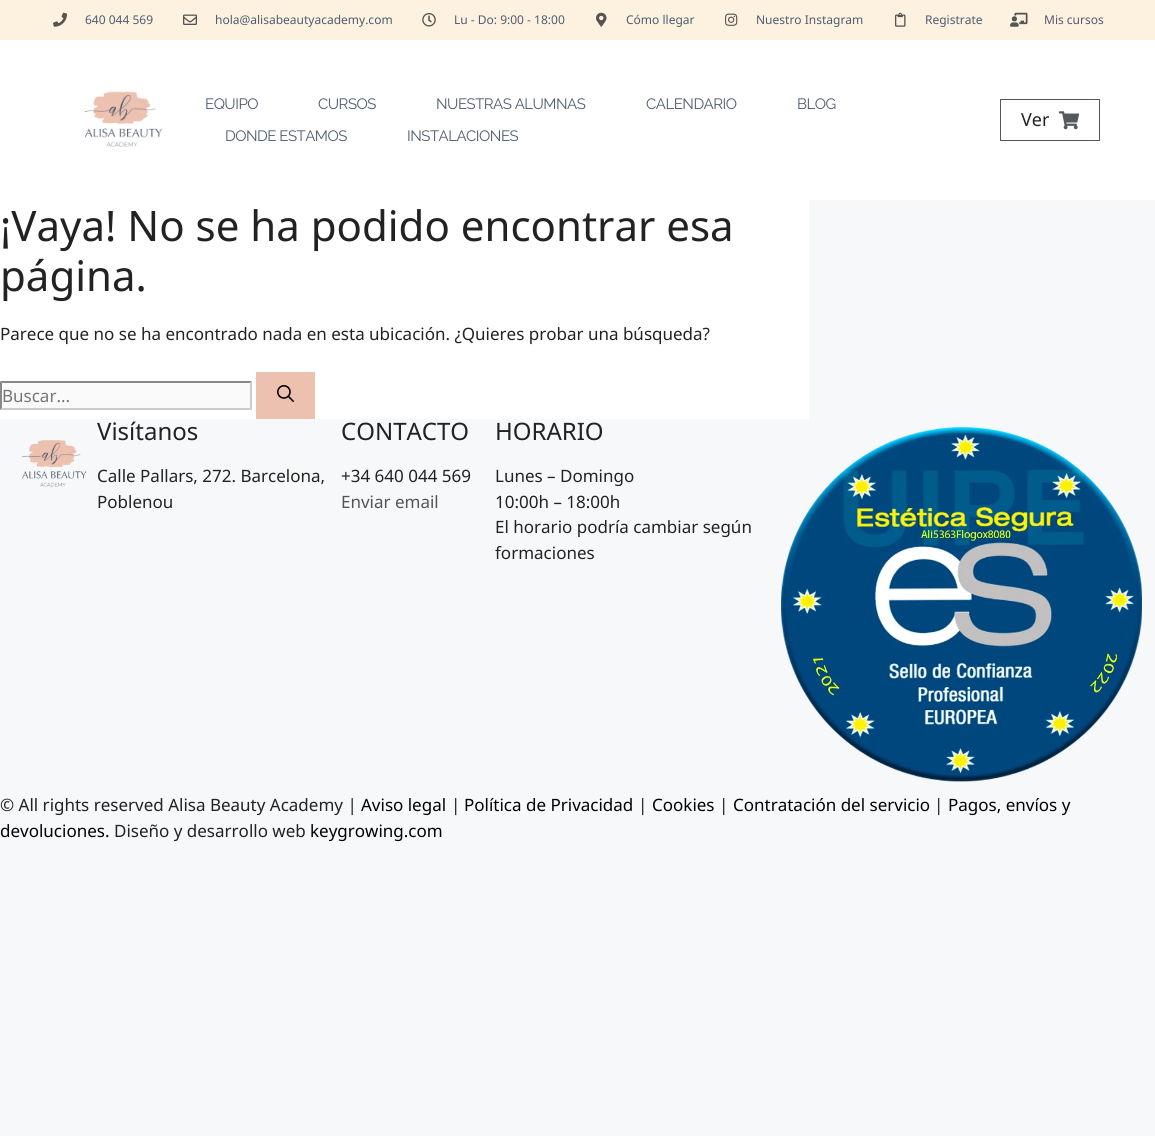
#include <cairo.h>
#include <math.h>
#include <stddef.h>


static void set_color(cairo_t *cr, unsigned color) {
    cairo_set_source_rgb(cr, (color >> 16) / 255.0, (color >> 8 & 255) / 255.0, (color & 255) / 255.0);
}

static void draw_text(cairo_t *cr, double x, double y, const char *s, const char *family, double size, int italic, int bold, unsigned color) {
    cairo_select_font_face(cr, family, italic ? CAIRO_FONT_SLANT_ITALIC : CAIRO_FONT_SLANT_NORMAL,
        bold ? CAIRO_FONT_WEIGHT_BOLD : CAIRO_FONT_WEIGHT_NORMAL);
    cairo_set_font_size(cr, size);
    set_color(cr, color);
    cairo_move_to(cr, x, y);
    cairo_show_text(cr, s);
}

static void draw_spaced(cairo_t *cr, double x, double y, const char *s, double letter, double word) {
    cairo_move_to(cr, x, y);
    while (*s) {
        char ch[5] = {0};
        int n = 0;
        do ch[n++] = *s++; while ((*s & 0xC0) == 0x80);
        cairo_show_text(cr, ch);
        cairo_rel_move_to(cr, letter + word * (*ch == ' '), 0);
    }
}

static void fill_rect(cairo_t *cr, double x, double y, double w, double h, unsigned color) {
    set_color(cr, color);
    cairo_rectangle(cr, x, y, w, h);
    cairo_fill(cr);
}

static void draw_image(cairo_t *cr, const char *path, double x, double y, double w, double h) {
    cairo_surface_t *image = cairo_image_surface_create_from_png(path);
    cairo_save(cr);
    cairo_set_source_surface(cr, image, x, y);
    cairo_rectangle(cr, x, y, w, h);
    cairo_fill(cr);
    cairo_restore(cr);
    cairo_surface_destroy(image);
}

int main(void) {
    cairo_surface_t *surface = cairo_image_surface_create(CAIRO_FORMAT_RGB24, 1155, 1136);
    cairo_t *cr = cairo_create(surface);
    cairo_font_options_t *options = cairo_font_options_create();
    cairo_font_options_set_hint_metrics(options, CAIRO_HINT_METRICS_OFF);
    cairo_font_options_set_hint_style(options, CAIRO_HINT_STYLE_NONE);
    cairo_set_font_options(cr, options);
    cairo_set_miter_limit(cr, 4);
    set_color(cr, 0xF7F8F9);
    cairo_paint(cr);
    fill_rect(cr, 0, 0, 1155, 40, 0xFDF1E0);
    draw_image(cr, "assets/img1.png", 53, 12, 14, 15);
    draw_text(cr, 85, 24, "640 044 569", "Noto Sans", 12, 0, 0, 0x4F5D70);
    draw_image(cr, "assets/img2.png", 183, 14, 14, 11);
    draw_text(cr, 215, 24, "hola@alisabeautyacademy.com", "Noto Sans", 12, 0, 0, 0x4F5D70);
    draw_image(cr, "assets/img3.png", 422, 13, 14, 14);
    draw_text(cr, 454, 24, "Lu - Do: 9:00 - 18:00", "Noto Sans", 12, 0, 0, 0x4F5D70);
    draw_image(cr, "assets/img4.png", 596, 12, 11, 15);
    draw_text(cr, 626, 24, "Cómo llegar", "Noto Sans", 12, 0, 0, 0x4F5D70);
    draw_image(cr, "assets/img5.png", 725, 13, 13, 13);
    draw_text(cr, 756, 24, "Nuestro Instagram", "Noto Sans", 12, 0, 0, 0x4F5D70);
    draw_image(cr, "assets/img6.png", 895, 12, 11, 15);
    draw_text(cr, 925, 24, "Registrate", "Noto Sans", 12, 0, 0, 0x4F5D70);
    draw_image(cr, "assets/img7.png", 1010, 12, 18, 15);
    draw_text(cr, 1044, 24, "Mis cursos", "Noto Sans", 12, 0, 0, 0x4F5D70);
    fill_rect(cr, 0, 40, 1155, 160, 0xFFFFFF);
    draw_image(cr, "assets/img8.png", 84, 91, 79, 56);
    cairo_select_font_face(cr, "Raleway", CAIRO_FONT_SLANT_NORMAL, CAIRO_FONT_WEIGHT_NORMAL);
    cairo_set_font_size(cr, 15);
    set_color(cr, 0x4F5D70);
    draw_spaced(cr, 205, 109, "EQUIPO", -0.5, 0);
    draw_spaced(cr, 318, 109, "CURSOS", -0.5, 0);
    draw_spaced(cr, 436, 109, "NUESTRAS ALUMNAS", -0.5, 0);
    draw_spaced(cr, 646, 109, "CALENDARIO", -0.5, 0);
    draw_spaced(cr, 797, 109, "BLOG", -0.5, 0);
    draw_spaced(cr, 225, 141, "DONDE ESTAMOS", -0.5, 0);
    draw_spaced(cr, 407, 141, "INSTALACIONES", -0.5, 0);
    cairo_rectangle(cr, 1000.5, 99.5, 99, 41);
    set_color(cr, 0x54595F);
    cairo_set_line_width(cr, 1);
    cairo_stroke(cr);
    draw_text(cr, 1021, 126, "Ver", "Noto Sans", 18, 0, 0, 0x222222);
    draw_image(cr, "assets/img9.png", 1058, 111, 22, 19);
    fill_rect(cr, 0, 200, 809, 219, 0xFFFFFF);
    draw_text(cr, 0, 241, "¡Vaya! No se ha podido encontrar esa", "Noto Sans", 42, 0, 0, 0x222222);
    draw_text(cr, 0, 291, "página.", "Noto Sans", 42, 0, 0, 0x222222);
    draw_text(cr, 0, 340, "Parece que no se ha encontrado nada en esta ubicación. ¿Quieres probar una búsqueda?", "Noto Sans", 17, 0, 0, 0x222222);
    fill_rect(cr, 0, 381, 252, 29, 0xFAFAFA);
    set_color(cr, 0x888888);
    cairo_new_path(cr);
    cairo_move_to(cr, 0, 381);
    cairo_line_to(cr, 252, 381);
    cairo_line_to(cr, 250, 383);
    cairo_line_to(cr, 2, 383);
    cairo_close_path(cr);
    cairo_fill(cr);
    set_color(cr, 0xCCCCCC);
    cairo_new_path(cr);
    cairo_move_to(cr, 252, 381);
    cairo_line_to(cr, 252, 410);
    cairo_line_to(cr, 250, 408);
    cairo_line_to(cr, 250, 383);
    cairo_close_path(cr);
    cairo_fill(cr);
    cairo_new_path(cr);
    cairo_move_to(cr, 252, 410);
    cairo_line_to(cr, 0, 410);
    cairo_line_to(cr, 2, 408);
    cairo_line_to(cr, 250, 408);
    cairo_close_path(cr);
    cairo_fill(cr);
    set_color(cr, 0x888888);
    cairo_new_path(cr);
    cairo_move_to(cr, 0, 410);
    cairo_line_to(cr, 0, 381);
    cairo_line_to(cr, 2, 383);
    cairo_line_to(cr, 2, 408);
    cairo_close_path(cr);
    cairo_fill(cr);
    draw_text(cr, 2, 402, "Buscar...", "Noto Sans", 17, 0, 0, 0x757575);
    fill_rect(cr, 256, 372, 59, 47, 0xEDC1B0);
    draw_image(cr, "assets/img10.png", 277, 385, 17, 17);
    draw_image(cr, "assets/img11.png", 21, 440, 66, 47);
    draw_text(cr, 97, 440, "Visítanos", "Noto Sans", 24, 0, 0, 0x222222);
    draw_text(cr, 97, 482, "Calle Pallars, 272. Barcelona,", "Noto Sans", 17, 0, 0, 0x222222);
    draw_text(cr, 97, 508, "Poblenou", "Noto Sans", 17, 0, 0, 0x222222);
    draw_text(cr, 341, 440, "CONTACTO", "Noto Sans", 24, 0, 0, 0x222222);
    draw_text(cr, 341, 482, "+34 640 044 569", "Noto Sans", 17, 0, 0, 0x222222);
    draw_text(cr, 341, 508, "Enviar email", "Noto Sans", 17, 0, 0, 0x545454);
    draw_text(cr, 495, 440, "HORARIO", "Noto Sans", 24, 0, 0, 0x222222);
    draw_text(cr, 495, 482, "Lunes – Domingo", "Noto Sans", 17, 0, 0, 0x222222);
    draw_text(cr, 495, 508, "10:00h – 18:00h", "Noto Sans", 17, 0, 0, 0x222222);
    draw_text(cr, 495, 533, "El horario podría cambiar según", "Noto Sans", 17, 0, 0, 0x222222);
    draw_text(cr, 495, 559, "formaciones", "Noto Sans", 17, 0, 0, 0x222222);
    draw_image(cr, "assets/img12.png", 781, 427, 361, 355);
    draw_text(cr, 0, 811, "© All rights reserved Alisa Beauty Academy |", "Noto Sans", 17, 0, 0, 0x222222);
    draw_text(cr, 361, 811, "Aviso legal", "Noto Sans", 17, 0, 0, 0x000000);
    draw_text(cr, 451, 811, "|", "Noto Sans", 17, 0, 0, 0x222222);
    draw_text(cr, 464, 811, "Política de Privacidad", "Noto Sans", 17, 0, 0, 0x000000);
    draw_text(cr, 638, 811, "|", "Noto Sans", 17, 0, 0, 0x222222);
    draw_text(cr, 652, 811, "Cookies", "Noto Sans", 17, 0, 0, 0x000000);
    draw_text(cr, 719, 811, "|", "Noto Sans", 17, 0, 0, 0x222222);
    draw_text(cr, 733, 811, "Contratación del servicio", "Noto Sans", 17, 0, 0, 0x000000);
    draw_text(cr, 934, 811, "|", "Noto Sans", 17, 0, 0, 0x222222);
    draw_text(cr, 948, 811, "Pagos, envíos y", "Noto Sans", 17, 0, 0, 0x000000);
    draw_text(cr, 0, 837, "devoluciones.", "Noto Sans", 17, 0, 0, 0x000000);
    draw_text(cr, 114, 837, "Diseño y desarrollo web", "Noto Sans", 17, 0, 0, 0x222222);
    draw_text(cr, 310, 837, "keygrowing.com", "Noto Sans", 17, 0, 0, 0x000000);
    cairo_surface_write_to_png(surface, "output.png");
    cairo_font_options_destroy(options);
    cairo_destroy(cr);
    cairo_surface_destroy(surface);
    return 0;
}
